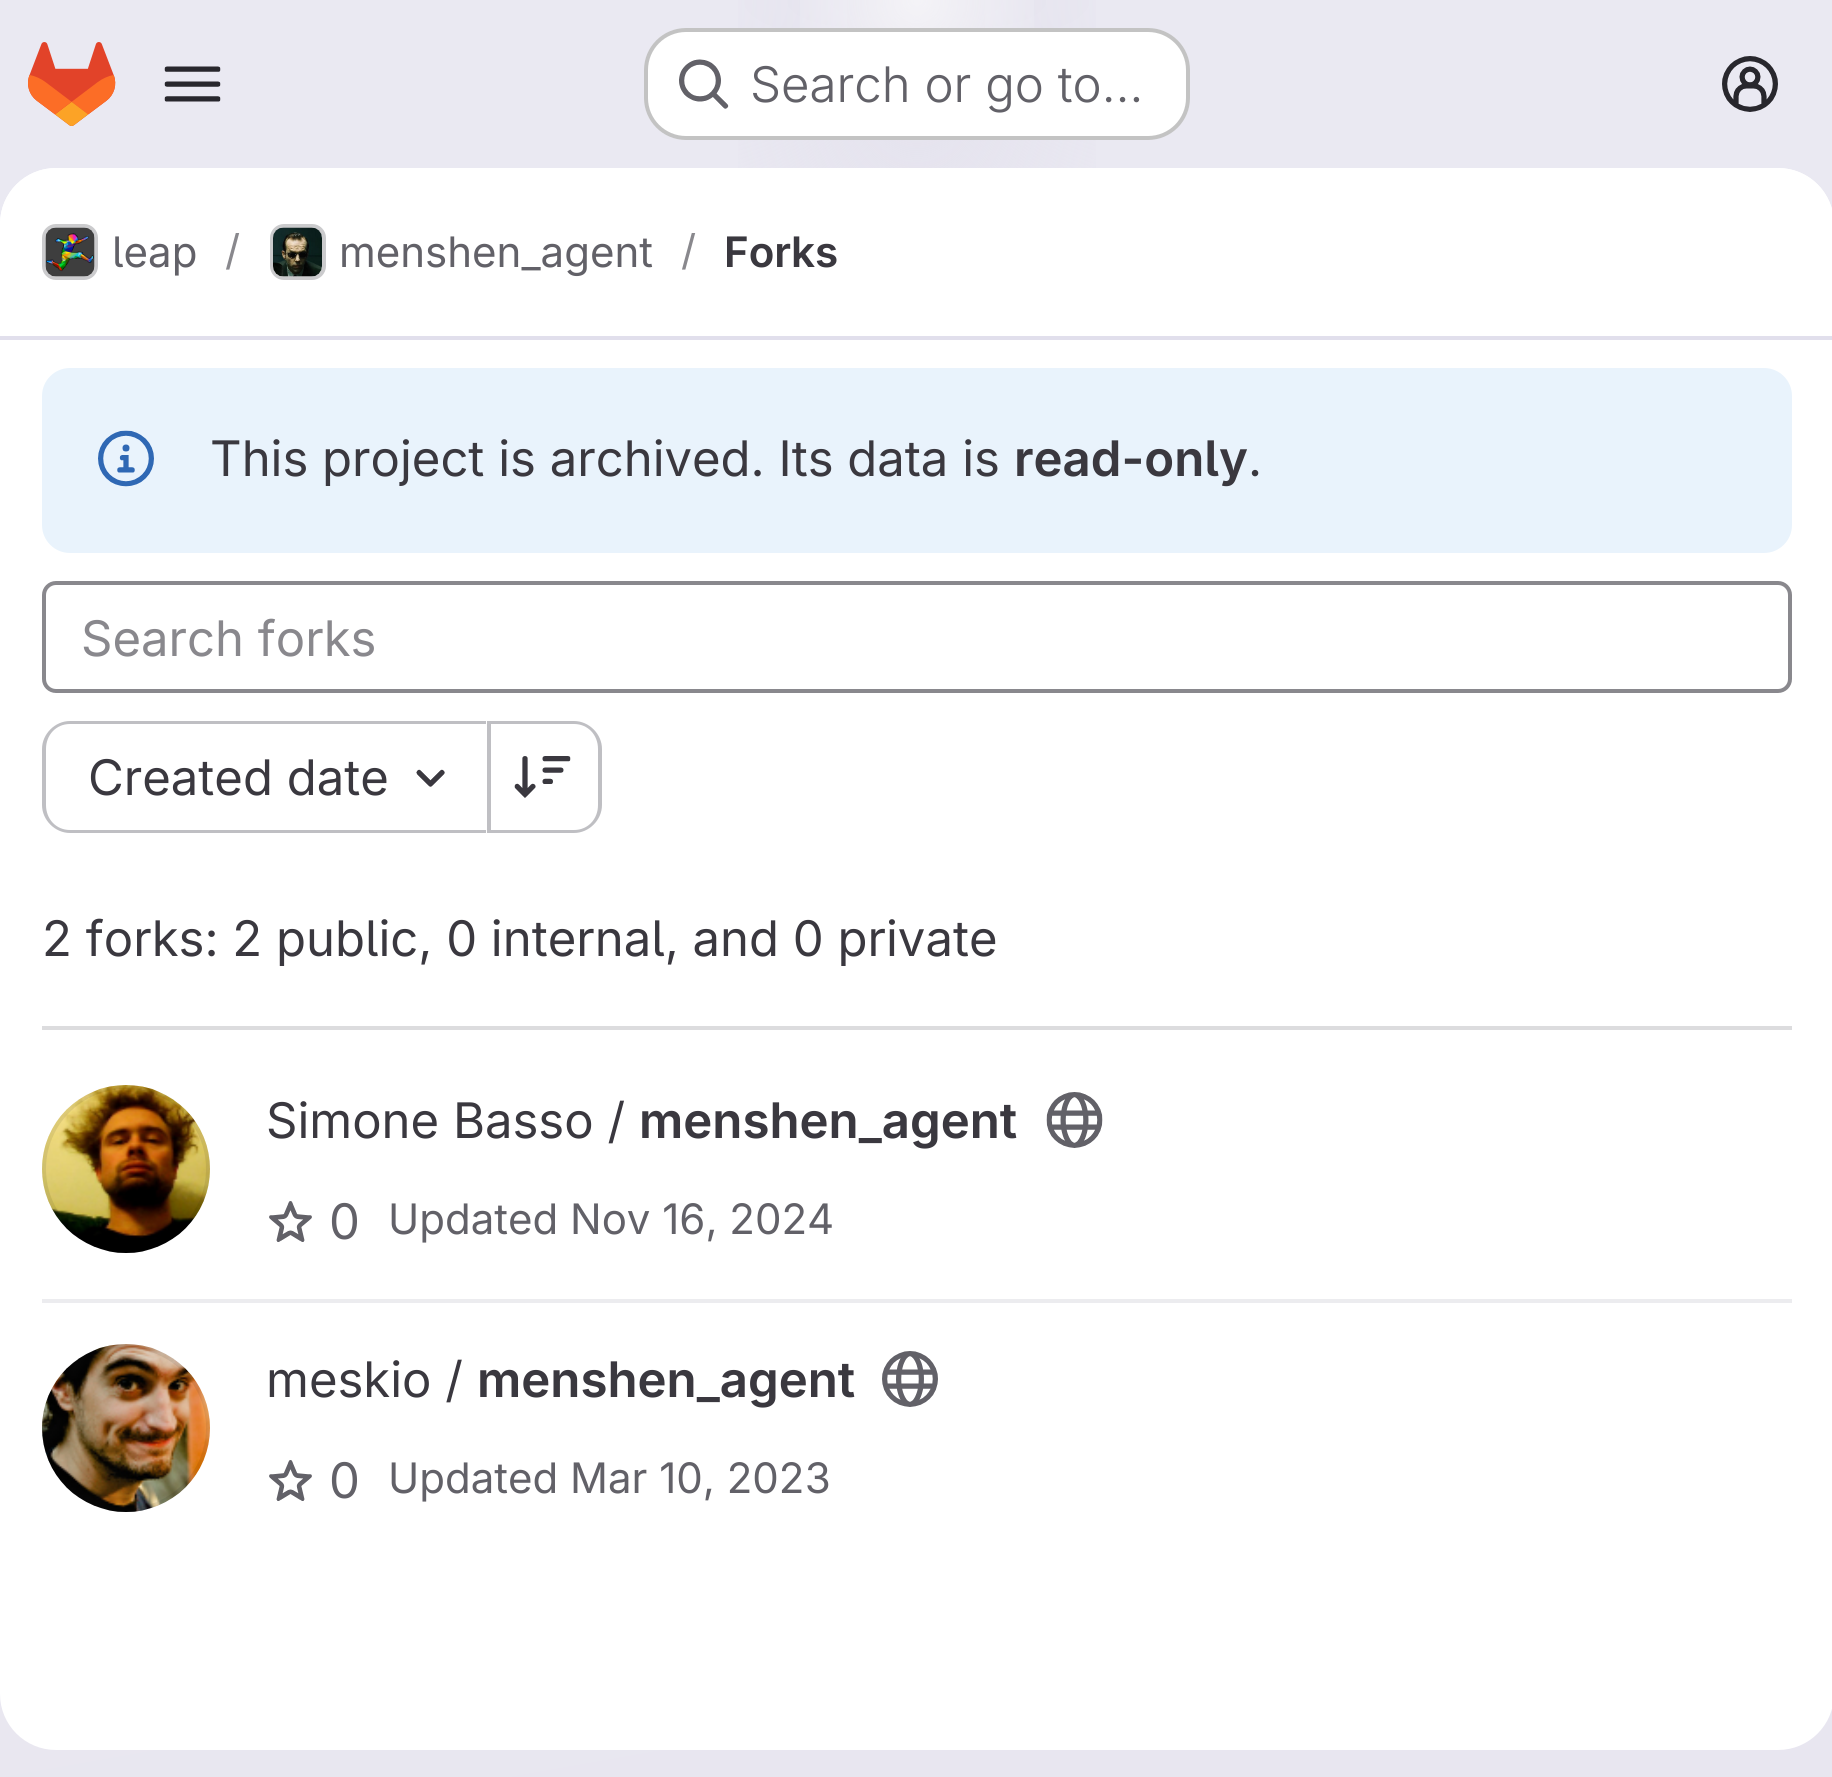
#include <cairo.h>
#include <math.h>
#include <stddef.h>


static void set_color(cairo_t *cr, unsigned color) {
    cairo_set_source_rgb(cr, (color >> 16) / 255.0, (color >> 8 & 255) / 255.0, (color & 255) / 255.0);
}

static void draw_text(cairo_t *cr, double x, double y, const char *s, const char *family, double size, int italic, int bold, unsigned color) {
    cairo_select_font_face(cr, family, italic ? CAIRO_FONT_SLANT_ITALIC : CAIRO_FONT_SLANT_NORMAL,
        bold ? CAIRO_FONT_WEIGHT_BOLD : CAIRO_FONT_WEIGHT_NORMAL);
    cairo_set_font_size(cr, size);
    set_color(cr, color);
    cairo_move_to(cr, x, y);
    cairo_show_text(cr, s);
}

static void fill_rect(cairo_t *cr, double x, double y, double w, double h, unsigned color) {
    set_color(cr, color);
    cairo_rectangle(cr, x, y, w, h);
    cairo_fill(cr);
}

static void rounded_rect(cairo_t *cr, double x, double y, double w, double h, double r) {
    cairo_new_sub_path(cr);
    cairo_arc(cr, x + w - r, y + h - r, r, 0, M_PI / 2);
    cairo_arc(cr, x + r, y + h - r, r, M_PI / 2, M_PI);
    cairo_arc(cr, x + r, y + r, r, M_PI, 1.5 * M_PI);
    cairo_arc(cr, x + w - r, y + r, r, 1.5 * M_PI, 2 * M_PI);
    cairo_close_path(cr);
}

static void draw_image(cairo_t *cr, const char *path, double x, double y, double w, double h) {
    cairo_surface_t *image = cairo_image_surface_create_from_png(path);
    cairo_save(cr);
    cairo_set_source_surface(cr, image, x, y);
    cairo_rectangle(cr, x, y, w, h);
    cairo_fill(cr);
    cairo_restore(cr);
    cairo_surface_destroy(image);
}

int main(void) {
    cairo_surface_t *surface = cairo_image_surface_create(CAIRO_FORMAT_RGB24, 1832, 1777);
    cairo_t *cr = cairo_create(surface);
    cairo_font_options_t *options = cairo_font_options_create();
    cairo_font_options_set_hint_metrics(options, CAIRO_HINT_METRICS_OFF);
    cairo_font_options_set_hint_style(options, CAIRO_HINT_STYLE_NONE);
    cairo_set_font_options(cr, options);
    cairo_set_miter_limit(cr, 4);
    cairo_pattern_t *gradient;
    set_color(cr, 0xFFFFFF);
    cairo_paint(cr);
    gradient = cairo_pattern_create_linear(1097, 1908, 737, -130);
    cairo_pattern_add_color_stop_rgba(gradient, 0, 0.91, 0.902, 0.941, 1);
    cairo_pattern_add_color_stop_rgba(gradient, 0.7, 0.918, 0.914, 0.949, 1);
    cairo_set_source(cr, gradient);
    cairo_pattern_destroy(gradient);
    cairo_rectangle(cr, 0, 0, 1832, 1777);
    cairo_fill(cr);
    gradient = cairo_pattern_create_radial(0, 0, 0, 0, 0, 1);
    cairo_pattern_set_matrix(gradient, &(cairo_matrix_t){1.0 / 917, 0, 0, 1.0 / 1778, -1.0 * 917 / 917, -1.0 * 0 / 1778});
    cairo_pattern_add_color_stop_rgba(gradient, 0, 0.894, 0.886, 0.929, 1);
    cairo_pattern_add_color_stop_rgba(gradient, 0.27, 0.894, 0.886, 0.929, 0);
    cairo_set_source(cr, gradient);
    cairo_pattern_destroy(gradient);
    cairo_rectangle(cr, 738, 0, 358, 168);
    cairo_fill(cr);
    gradient = cairo_pattern_create_radial(0, 0, 0, 0, 0, 1);
    cairo_pattern_set_matrix(gradient, &(cairo_matrix_t){1.0 / 917, 0, 0, 1.0 / 1778, -1.0 * 917 / 917, -1.0 * 0 / 1778});
    cairo_pattern_add_color_stop_rgba(gradient, 0, 0.894, 0.886, 0.925, 1);
    cairo_pattern_add_color_stop_rgba(gradient, 0.19, 0.894, 0.886, 0.925, 0);
    cairo_set_source(cr, gradient);
    cairo_pattern_destroy(gradient);
    cairo_rectangle(cr, 847, 0, 138, 137);
    cairo_fill(cr);
    gradient = cairo_pattern_create_radial(917, 0, 0, 917, 0, 2001);
    cairo_pattern_add_color_stop_rgba(gradient, 0, 1, 1, 1, 0.6);
    cairo_pattern_add_color_stop_rgba(gradient, 0.07, 1, 1, 1, 0);
    cairo_set_source(cr, gradient);
    cairo_pattern_destroy(gradient);
    cairo_rectangle(cr, 800, 0, 234, 118);
    cairo_fill(cr);
    draw_image(cr, "assets/img1.png", 28, 42, 88, 84);
    draw_image(cr, "assets/img2.png", 164, 66, 57, 36);
    set_color(cr, 0xFFFFFF);
    rounded_rect(cr, 644, 28, 546, 112, 42);
    cairo_fill(cr);
    rounded_rect(cr, 646, 30, 542, 108, 40);
    cairo_set_source_rgba(cr, 0.02, 0.02, 0.024, 0.24);
    cairo_set_line_width(cr, 4);
    cairo_stroke(cr);
    draw_image(cr, "assets/img3.png", 679, 59, 50, 50);
    draw_text(cr, 750, 102, "Search or go to…", "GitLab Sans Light", 49, 0, 0, 0x626168);
    draw_image(cr, "assets/img4.png", 1722, 56, 56, 56);
    set_color(cr, 0xFFFFFF);
    rounded_rect(cr, 0, 168, 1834, 1582, 56);
    cairo_fill(cr);
    cairo_new_path(cr);
    cairo_move_to(cr, 56, 168);
    cairo_line_to(cr, 1778, 168);
    cairo_curve_to(cr, 1809, 168, 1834, 193, 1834, 224);
    cairo_line_to(cr, 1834, 340);
    cairo_line_to(cr, 0, 340);
    cairo_line_to(cr, 0, 224);
    cairo_curve_to(cr, 0, 193, 25, 168, 56, 168);
    cairo_close_path(cr);
    cairo_fill(cr);
    fill_rect(cr, 0, 336, 1832, 4, 0xE1DFEC);
    rounded_rect(cr, 44, 226, 52, 52, 12);
    set_color(cr, 0xDCDCDE);
    cairo_stroke(cr);
    draw_image(cr, "assets/img5.png", 45, 227, 50, 50);
    rounded_rect(cr, 44, 226, 52, 52, 12);
    cairo_set_source_rgba(cr, 0.02, 0.02, 0.024, 0.08);
    cairo_stroke(cr);
    draw_text(cr, 112, 267, "leap", "GitLab Sans", 42, 0, 0, 0x626168);
    draw_text(cr, 225, 265, "/", "GitLab Sans", 42, 0, 0, 0x89888D);
    rounded_rect(cr, 272, 226, 52, 52, 12);
    set_color(cr, 0xDCDCDE);
    cairo_stroke(cr);
    draw_image(cr, "assets/img6.png", 273, 227, 49, 50);
    rounded_rect(cr, 272, 226, 52, 52, 12);
    cairo_set_source_rgba(cr, 0.02, 0.02, 0.024, 0.08);
    cairo_stroke(cr);
    draw_text(cr, 339, 267, "menshen_agent", "GitLab Sans", 42, 0, 0, 0x626168);
    draw_text(cr, 681, 265, "/", "GitLab Sans", 42, 0, 0, 0x89888D);
    draw_text(cr, 724, 267, "Forks", "GitLab Sans SemiBold", 42, 0, 0, 0x3A383F);
    set_color(cr, 0xE9F3FC);
    rounded_rect(cr, 42, 368, 1750, 185, 28);
    cairo_fill(cr);
    draw_image(cr, "assets/img7.png", 98, 430, 56, 57);
    draw_text(cr, 210, 476, "This project is archived. Its data is", "GitLab Sans", 49, 0, 0, 0x3A383F);
    draw_text(cr, 1014, 476, "read-only", "GitLab Sans SemiBold", 49, 0, 0, 0x3A383F);
    draw_text(cr, 1248, 476, ".", "GitLab Sans", 49, 0, 0, 0x3A383F);
    fill_rect(cr, 42, 1026, 1750, 4, 0xDCDCDE);
    rounded_rect(cr, 44, 583, 1746, 108, 12);
    set_color(cr, 0x89888D);
    cairo_stroke(cr);
    draw_text(cr, 81, 656, "Search forks", "GitLab Sans", 49, 0, 0, 0x89888D);
    set_color(cr, 0xBFBFC3);
    cairo_set_fill_rule(cr, CAIRO_FILL_RULE_EVEN_ODD);
    cairo_new_path(cr);
    cairo_move_to(cr, 70, 721);
    cairo_line_to(cr, 486, 721);
    cairo_line_to(cr, 486, 833);
    cairo_line_to(cr, 70, 833);
    cairo_curve_to(cr, 55, 833, 42, 820, 42, 805);
    cairo_line_to(cr, 42, 749);
    cairo_curve_to(cr, 42, 734, 55, 721, 70, 721);
    cairo_close_path(cr);
    cairo_move_to(cr, 70, 724);
    cairo_line_to(cr, 486, 724);
    cairo_line_to(cr, 486, 830);
    cairo_line_to(cr, 70, 830);
    cairo_curve_to(cr, 56, 830, 46, 819, 46, 805);
    cairo_line_to(cr, 46, 749);
    cairo_curve_to(cr, 46, 735, 56, 724, 70, 724);
    cairo_close_path(cr);
    cairo_fill(cr);
    draw_text(cr, 88, 795, "Created date", "GitLab Sans", 49, 0, 0, 0x3A383F);
    draw_image(cr, "assets/img8.png", 416, 769, 29, 18);
    set_color(cr, 0xBFBFC3);
    cairo_new_path(cr);
    cairo_move_to(cr, 490, 721);
    cairo_line_to(cr, 574, 721);
    cairo_curve_to(cr, 589, 721, 602, 734, 602, 749);
    cairo_line_to(cr, 602, 805);
    cairo_curve_to(cr, 602, 820, 589, 833, 574, 833);
    cairo_line_to(cr, 490, 833);
    cairo_close_path(cr);
    cairo_move_to(cr, 490, 724);
    cairo_line_to(cr, 574, 724);
    cairo_curve_to(cr, 588, 724, 598, 735, 598, 749);
    cairo_line_to(cr, 598, 805);
    cairo_curve_to(cr, 598, 819, 588, 830, 574, 830);
    cairo_line_to(cr, 490, 830);
    cairo_close_path(cr);
    cairo_fill(cr);
    fill_rect(cr, 487, 721, 4, 112, 0xBFBFC3);
    draw_image(cr, "assets/img9.png", 514, 756, 57, 42);
    draw_text(cr, 42, 956, "2 forks: 2 public, 0 internal, and 0 private", "GitLab Sans", 49, 0, 0, 0x3A383F);
    fill_rect(cr, 42, 1299, 1750, 4, 0xECECEF);
    draw_image(cr, "assets/img10.png", 42, 1085, 168, 168);
    cairo_arc(cr, 126, 1169, 82, 0, 2 * M_PI);
    cairo_set_source_rgba(cr, 0.02, 0.02, 0.024, 0.08);
    cairo_stroke(cr);
    draw_text(cr, 266, 1138, "Simone Basso /", "GitLab Sans", 49, 0, 0, 0x3A383F);
    draw_text(cr, 639, 1138, "menshen_agent", "GitLab Sans SemiBold", 49, 0, 0, 0x3A383F);
    draw_image(cr, "assets/img11.png", 1046, 1092, 57, 56);
    draw_image(cr, "assets/img12.png", 269, 1201, 43, 41);
    draw_text(cr, 329, 1239, "0", "GitLab Sans", 49, 0, 0, 0x626168);
    draw_text(cr, 388, 1234, "Updated Nov 16, 2024", "GitLab Sans", 42, 0, 0, 0x626168);
    draw_image(cr, "assets/img13.png", 42, 1344, 168, 168);
    cairo_arc(cr, 126, 1428, 82, 0, 2 * M_PI);
    cairo_set_source_rgba(cr, 0.02, 0.02, 0.024, 0.08);
    cairo_stroke(cr);
    draw_text(cr, 266, 1397, "meskio /", "GitLab Sans", 49, 0, 0, 0x3A383F);
    draw_text(cr, 477, 1397, "menshen_agent", "GitLab Sans SemiBold", 49, 0, 0, 0x3A383F);
    draw_image(cr, "assets/img14.png", 882, 1351, 56, 56);
    draw_image(cr, "assets/img12.png", 269, 1460, 43, 41);
    draw_text(cr, 329, 1498, "0", "GitLab Sans", 49, 0, 0, 0x626168);
    draw_text(cr, 388, 1493, "Updated Mar 10, 2023", "GitLab Sans", 42, 0, 0, 0x626168);
    cairo_surface_write_to_png(surface, "output.png");
    cairo_font_options_destroy(options);
    cairo_destroy(cr);
    cairo_surface_destroy(surface);
    return 0;
}
